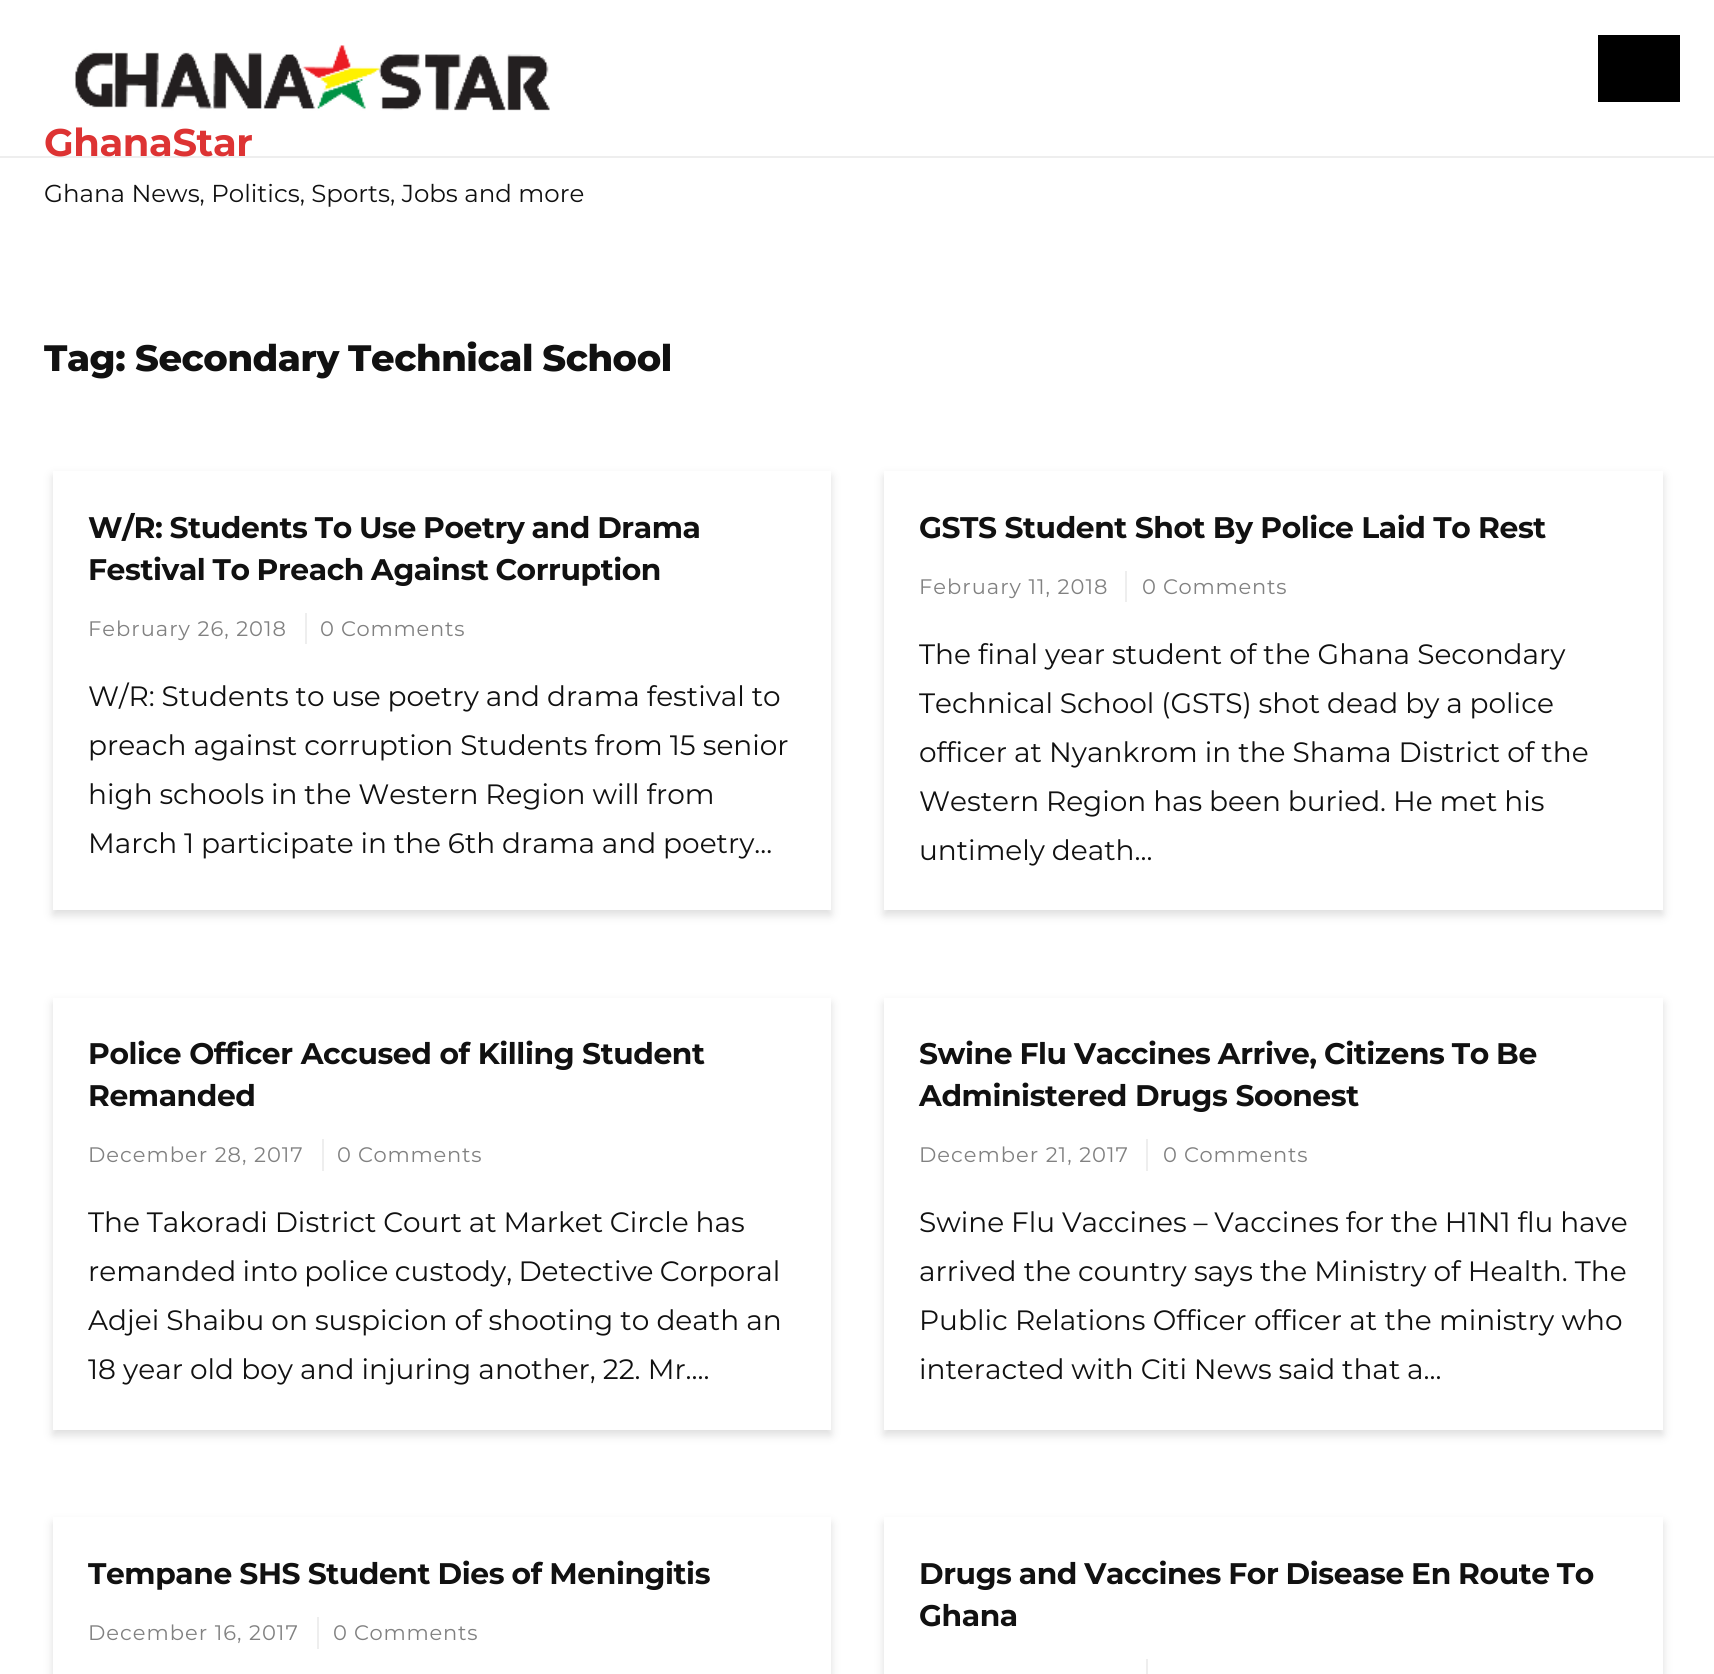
#include <cairo.h>
#include <math.h>
#include <stddef.h>


static void set_color(cairo_t *cr, unsigned color) {
    cairo_set_source_rgb(cr, (color >> 16) / 255.0, (color >> 8 & 255) / 255.0, (color & 255) / 255.0);
}

static void draw_text(cairo_t *cr, double x, double y, const char *s, const char *family, double size, int italic, int bold, unsigned color) {
    cairo_select_font_face(cr, family, italic ? CAIRO_FONT_SLANT_ITALIC : CAIRO_FONT_SLANT_NORMAL,
        bold ? CAIRO_FONT_WEIGHT_BOLD : CAIRO_FONT_WEIGHT_NORMAL);
    cairo_set_font_size(cr, size);
    set_color(cr, color);
    cairo_move_to(cr, x, y);
    cairo_show_text(cr, s);
}

static void draw_spaced(cairo_t *cr, double x, double y, const char *s, double letter, double word) {
    cairo_move_to(cr, x, y);
    while (*s) {
        char ch[5] = {0};
        int n = 0;
        do ch[n++] = *s++; while ((*s & 0xC0) == 0x80);
        cairo_show_text(cr, ch);
        cairo_rel_move_to(cr, letter + word * (*ch == ' '), 0);
    }
}

static void fill_rect(cairo_t *cr, double x, double y, double w, double h, unsigned color) {
    set_color(cr, color);
    cairo_rectangle(cr, x, y, w, h);
    cairo_fill(cr);
}

static void rounded_rect(cairo_t *cr, double x, double y, double w, double h, double r) {
    cairo_new_sub_path(cr);
    cairo_arc(cr, x + w - r, y + h - r, r, 0, M_PI / 2);
    cairo_arc(cr, x + r, y + h - r, r, M_PI / 2, M_PI);
    cairo_arc(cr, x + r, y + r, r, M_PI, 1.5 * M_PI);
    cairo_arc(cr, x + w - r, y + r, r, 1.5 * M_PI, 2 * M_PI);
    cairo_close_path(cr);
}

static void draw_shadow(cairo_t *cr, double x, double y, double w, double h, double r, double blur, double alpha) {
    cairo_push_group_with_content(cr, CAIRO_CONTENT_ALPHA);
    cairo_set_operator(cr, CAIRO_OPERATOR_SOURCE);
    for (int i = 15; i >= -15 && fmin(w, h) + blur * i / 3 > 0; i -= 2) {
        double e = blur * i / 6;
        cairo_set_source_rgba(cr, 0, 0, 0, alpha * erfc((i - 1) / 8.5) / 2);
        rounded_rect(cr, x - e, y - e, w + 2 * e, h + 2 * e, fmax(0, fmin(r + e + blur * .6, fmin(w, h) / 2 + e)));
        cairo_fill(cr);
    }
    cairo_pattern_t *soft = cairo_pop_group(cr);
    cairo_mask(cr, soft);
    cairo_pattern_destroy(soft);
}

static void draw_image(cairo_t *cr, const char *path, double x, double y, double w, double h) {
    cairo_surface_t *image = cairo_image_surface_create_from_png(path);
    cairo_save(cr);
    cairo_set_source_surface(cr, image, x, y);
    cairo_rectangle(cr, x, y, w, h);
    cairo_fill(cr);
    cairo_restore(cr);
    cairo_surface_destroy(image);
}

int main(void) {
    cairo_surface_t *surface = cairo_image_surface_create(CAIRO_FORMAT_RGB24, 1714, 1674);
    cairo_t *cr = cairo_create(surface);
    cairo_font_options_t *options = cairo_font_options_create();
    cairo_font_options_set_hint_metrics(options, CAIRO_HINT_METRICS_OFF);
    cairo_font_options_set_hint_style(options, CAIRO_HINT_STYLE_NONE);
    cairo_set_font_options(cr, options);
    cairo_set_miter_limit(cr, 4);
    set_color(cr, 0xFFFFFF);
    cairo_paint(cr);
    fill_rect(cr, 0, 156, 1714, 2, 0xEEEEEE);
    fill_rect(cr, 1598, 35, 82, 67, 0x000000);
    draw_image(cr, "assets/img1.png", 74, 45, 476, 66);
    cairo_select_font_face(cr, "Montserrat", CAIRO_FONT_SLANT_NORMAL, CAIRO_FONT_WEIGHT_BOLD);
    cairo_set_font_size(cr, 38.5);
    set_color(cr, 0xDD3333);
    draw_spaced(cr, 44, 156, "GhanaStar", -0.4, 0);
    draw_text(cr, 44, 202, "Ghana News, Politics, Sports, Jobs and more", "Montserrat", 24.5, 0, 0, 0x111111);
    cairo_select_font_face(cr, "Montserrat ExtraBold", CAIRO_FONT_SLANT_NORMAL, CAIRO_FONT_WEIGHT_NORMAL);
    cairo_set_font_size(cr, 36.75);
    draw_spaced(cr, 44, 371, "Tag:", -0.4, 0);
    draw_spaced(cr, 135, 371, "Secondary Technical School", -0.4, -1);
    cairo_save(cr);
    cairo_set_fill_rule(cr, CAIRO_FILL_RULE_EVEN_ODD);
    cairo_new_path(cr);
    cairo_move_to(cr, 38, 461);
    cairo_line_to(cr, 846, 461);
    cairo_line_to(cr, 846, 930);
    cairo_line_to(cr, 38, 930);
    cairo_close_path(cr);
    cairo_move_to(cr, 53, 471);
    cairo_line_to(cr, 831, 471);
    cairo_line_to(cr, 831, 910);
    cairo_line_to(cr, 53, 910);
    cairo_close_path(cr);
    cairo_clip(cr);
    set_color(cr, 0xDDDDDD);
    draw_shadow(cr, 53, 476, 778, 439, 0, 4.5, 1);
    cairo_restore(cr);
    cairo_select_font_face(cr, "Montserrat", CAIRO_FONT_SLANT_NORMAL, CAIRO_FONT_WEIGHT_BOLD);
    cairo_set_font_size(cr, 29.75);
    draw_spaced(cr, 88, 538, "W/R: Students To Use Poetry and Drama", -0.4, -0.75);
    draw_spaced(cr, 88, 580, "Festival To Preach Against Corruption", -0.4, -1);
    fill_rect(cr, 305, 613, 2, 31, 0xEEEEEE);
    cairo_select_font_face(cr, "Montserrat", CAIRO_FONT_SLANT_NORMAL, CAIRO_FONT_WEIGHT_NORMAL);
    cairo_set_font_size(cr, 21);
    set_color(cr, 0x818181);
    draw_spaced(cr, 88, 636, "February 26, 2018", 1, 0);
    draw_spaced(cr, 320, 636, "0 Comments", 0.75, 0);
    cairo_set_font_size(cr, 28);
    set_color(cr, 0x111111);
    draw_spaced(cr, 88, 706, "W/R: Students to use poetry and drama festival to", 0, -0.5);
    draw_spaced(cr, 88, 755, "preach against corruption Students from 15 senior", 0, -0.25);
    draw_spaced(cr, 88, 804, "high schools in the Western Region will from", 0, -0.5);
    draw_spaced(cr, 88, 853, "March 1 participate in the 6th drama and poetry...", 0, -0.5);
    set_color(cr, 0xDDDDDD);
    draw_shadow(cr, 884, 476, 779, 439, 0, 4.5, 1);
    fill_rect(cr, 884, 471, 779, 439, 0xFFFFFF);
    cairo_select_font_face(cr, "Montserrat", CAIRO_FONT_SLANT_NORMAL, CAIRO_FONT_WEIGHT_BOLD);
    cairo_set_font_size(cr, 29.75);
    set_color(cr, 0x111111);
    draw_spaced(cr, 919, 538, "GSTS Student Shot By Police Laid To Rest", -0.4, -0.25);
    fill_rect(cr, 1125, 571, 2, 31, 0xEEEEEE);
    cairo_select_font_face(cr, "Montserrat", CAIRO_FONT_SLANT_NORMAL, CAIRO_FONT_WEIGHT_NORMAL);
    cairo_set_font_size(cr, 21);
    set_color(cr, 0x818181);
    draw_spaced(cr, 919, 594, "February 11, 2018", 1, 0);
    draw_spaced(cr, 1142, 594, "0 Comments", 0.75, 0);
    cairo_set_font_size(cr, 28);
    set_color(cr, 0x111111);
    draw_spaced(cr, 919, 664, "The final year student of the Ghana Secondary", 0, -0.25);
    draw_spaced(cr, 919, 713, "Technical School (GSTS) shot dead by a police", 0, -0.5);
    draw_spaced(cr, 919, 762, "officer at Nyankrom in the Shama District of the", 0, -0.25);
    draw_spaced(cr, 919, 811, "Western Region has been buried. He met his", 0, -0.5);
    draw_spaced(cr, 919, 860, "untimely death...", 0, -0.5);
    set_color(cr, 0xDDDDDD);
    draw_shadow(cr, 53, 1003, 778, 432, 0, 4.5, 1);
    fill_rect(cr, 53, 998, 778, 432, 0xFFFFFF);
    cairo_select_font_face(cr, "Montserrat", CAIRO_FONT_SLANT_NORMAL, CAIRO_FONT_WEIGHT_BOLD);
    cairo_set_font_size(cr, 29.75);
    set_color(cr, 0x111111);
    draw_spaced(cr, 88, 1064, "Police Officer Accused of Killing Student", -0.4, 0);
    draw_spaced(cr, 88, 1106, "Remanded", -0.4, 0);
    fill_rect(cr, 322, 1139, 2, 32, 0xEEEEEE);
    cairo_select_font_face(cr, "Montserrat", CAIRO_FONT_SLANT_NORMAL, CAIRO_FONT_WEIGHT_NORMAL);
    cairo_set_font_size(cr, 21);
    set_color(cr, 0x818181);
    draw_spaced(cr, 88, 1162, "December 28, 2017", 1, 0);
    draw_spaced(cr, 337, 1162, "0 Comments", 0.75, 0);
    cairo_set_font_size(cr, 28);
    set_color(cr, 0x111111);
    draw_spaced(cr, 88, 1232, "The Takoradi District Court at Market Circle has", 0, -0.5);
    draw_spaced(cr, 88, 1281, "remanded into police custody, Detective Corporal", 0, -1);
    draw_spaced(cr, 88, 1330, "Adjei Shaibu on suspicion of shooting to death an", 0, -0.25);
    draw_spaced(cr, 88, 1379, "18 year old boy and injuring another, 22. Mr....", 0, -0.25);
    set_color(cr, 0xDDDDDD);
    draw_shadow(cr, 884, 1003, 779, 432, 0, 4.5, 1);
    fill_rect(cr, 884, 998, 779, 432, 0xFFFFFF);
    cairo_select_font_face(cr, "Montserrat", CAIRO_FONT_SLANT_NORMAL, CAIRO_FONT_WEIGHT_BOLD);
    cairo_set_font_size(cr, 29.75);
    set_color(cr, 0x111111);
    draw_spaced(cr, 919, 1064, "Swine Flu Vaccines Arrive, Citizens To Be", -0.4, -0.75);
    draw_spaced(cr, 919, 1106, "Administered Drugs Soonest", -0.4, 0);
    fill_rect(cr, 1146, 1139, 2, 32, 0xEEEEEE);
    cairo_select_font_face(cr, "Montserrat", CAIRO_FONT_SLANT_NORMAL, CAIRO_FONT_WEIGHT_NORMAL);
    cairo_set_font_size(cr, 21);
    set_color(cr, 0x818181);
    draw_spaced(cr, 919, 1162, "December 21, 2017", 1, 0);
    draw_spaced(cr, 1163, 1162, "0 Comments", 0.75, 0);
    cairo_set_font_size(cr, 28);
    set_color(cr, 0x111111);
    draw_spaced(cr, 919, 1232, "Swine Flu Vaccines – Vaccines for the H1N1 flu have", 0, -0.5);
    draw_spaced(cr, 919, 1281, "arrived the country says the Ministry of Health. The", 0, -0.25);
    draw_text(cr, 919, 1330, "Public Relations Officer officer at the ministry who", "Montserrat", 28, 0, 0, 0x111111);
    draw_spaced(cr, 919, 1379, "interacted with Citi News said that a...", 0, -0.5);
    cairo_save(cr);
    cairo_set_fill_rule(cr, CAIRO_FILL_RULE_EVEN_ODD);
    cairo_new_path(cr);
    cairo_move_to(cr, 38, 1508);
    cairo_line_to(cr, 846, 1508);
    cairo_line_to(cr, 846, 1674);
    cairo_line_to(cr, 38, 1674);
    cairo_close_path(cr);
    cairo_move_to(cr, 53, 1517);
    cairo_line_to(cr, 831, 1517);
    cairo_line_to(cr, 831, 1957);
    cairo_line_to(cr, 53, 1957);
    cairo_close_path(cr);
    cairo_clip(cr);
    set_color(cr, 0xDDDDDD);
    draw_shadow(cr, 53, 1523, 778, 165, 0, 4.5, 1);
    cairo_restore(cr);
    cairo_select_font_face(cr, "Montserrat", CAIRO_FONT_SLANT_NORMAL, CAIRO_FONT_WEIGHT_BOLD);
    cairo_set_font_size(cr, 29.75);
    draw_spaced(cr, 88, 1584, "Tempane SHS Student Dies of Meningitis", -0.4, -0.5);
    fill_rect(cr, 317, 1617, 2, 32, 0xEEEEEE);
    cairo_select_font_face(cr, "Montserrat", CAIRO_FONT_SLANT_NORMAL, CAIRO_FONT_WEIGHT_NORMAL);
    cairo_set_font_size(cr, 21);
    set_color(cr, 0x818181);
    draw_spaced(cr, 88, 1640, "December 16, 2017", 1, 0);
    draw_spaced(cr, 333, 1640, "0 Comments", 0.75, 0);
    set_color(cr, 0xDDDDDD);
    draw_shadow(cr, 884, 1523, 779, 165, 0, 4.5, 1);
    fill_rect(cr, 884, 1517, 779, 157, 0xFFFFFF);
    cairo_select_font_face(cr, "Montserrat", CAIRO_FONT_SLANT_NORMAL, CAIRO_FONT_WEIGHT_BOLD);
    cairo_set_font_size(cr, 29.75);
    set_color(cr, 0x111111);
    draw_spaced(cr, 919, 1584, "Drugs and Vaccines For Disease En Route To", -0.4, -0.75);
    draw_spaced(cr, 919, 1626, "Ghana", -0.4, 0);
    fill_rect(cr, 1146, 1659, 2, 15, 0xEEEEEE);
    cairo_surface_write_to_png(surface, "output.png");
    cairo_font_options_destroy(options);
    cairo_destroy(cr);
    cairo_surface_destroy(surface);
    return 0;
}
